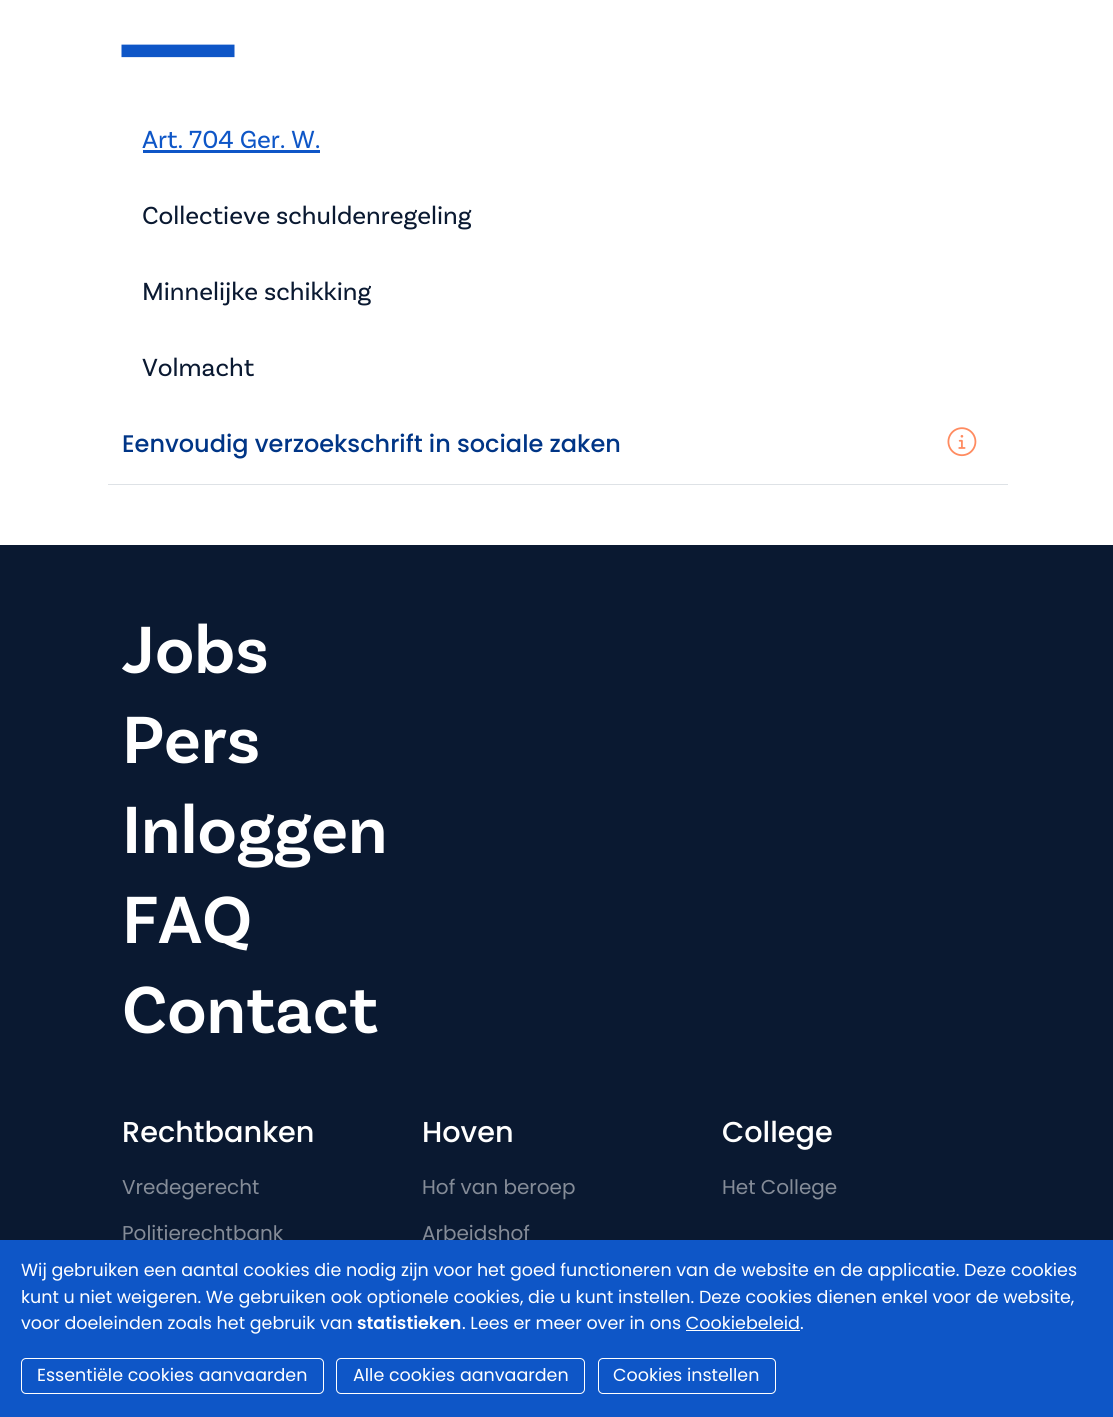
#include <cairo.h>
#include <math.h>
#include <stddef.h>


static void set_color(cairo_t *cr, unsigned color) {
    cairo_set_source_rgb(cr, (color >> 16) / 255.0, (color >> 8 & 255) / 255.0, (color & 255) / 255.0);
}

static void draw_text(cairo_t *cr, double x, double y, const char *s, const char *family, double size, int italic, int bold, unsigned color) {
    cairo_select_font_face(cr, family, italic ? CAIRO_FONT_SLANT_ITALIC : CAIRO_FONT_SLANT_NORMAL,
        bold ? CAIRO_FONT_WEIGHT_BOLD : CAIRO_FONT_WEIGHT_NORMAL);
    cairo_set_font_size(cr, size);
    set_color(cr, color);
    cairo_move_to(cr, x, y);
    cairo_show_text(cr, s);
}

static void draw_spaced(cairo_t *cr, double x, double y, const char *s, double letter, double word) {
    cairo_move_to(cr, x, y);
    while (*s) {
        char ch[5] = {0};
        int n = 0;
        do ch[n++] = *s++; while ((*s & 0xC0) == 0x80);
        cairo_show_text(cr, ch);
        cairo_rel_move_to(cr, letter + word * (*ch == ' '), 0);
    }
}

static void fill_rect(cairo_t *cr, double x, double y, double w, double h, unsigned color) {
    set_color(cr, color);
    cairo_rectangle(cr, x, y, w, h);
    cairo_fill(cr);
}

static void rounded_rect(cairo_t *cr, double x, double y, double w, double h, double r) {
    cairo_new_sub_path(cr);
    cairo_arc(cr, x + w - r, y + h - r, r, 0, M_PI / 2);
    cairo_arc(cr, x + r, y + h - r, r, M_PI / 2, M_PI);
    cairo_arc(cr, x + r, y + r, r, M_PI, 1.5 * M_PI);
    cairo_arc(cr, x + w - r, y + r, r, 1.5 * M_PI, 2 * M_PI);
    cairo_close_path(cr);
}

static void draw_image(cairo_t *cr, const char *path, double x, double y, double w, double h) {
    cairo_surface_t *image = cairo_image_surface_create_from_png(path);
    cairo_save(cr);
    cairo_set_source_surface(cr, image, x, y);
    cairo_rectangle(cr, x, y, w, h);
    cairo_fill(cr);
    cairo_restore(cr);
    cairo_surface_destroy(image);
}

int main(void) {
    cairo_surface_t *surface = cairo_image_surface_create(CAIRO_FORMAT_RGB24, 1113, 1417);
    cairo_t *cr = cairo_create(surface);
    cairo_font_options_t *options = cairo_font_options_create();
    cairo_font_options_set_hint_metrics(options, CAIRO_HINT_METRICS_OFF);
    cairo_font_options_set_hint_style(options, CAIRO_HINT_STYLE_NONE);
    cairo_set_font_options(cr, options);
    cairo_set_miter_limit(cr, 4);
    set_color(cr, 0xFFFFFF);
    cairo_paint(cr);
    cairo_select_font_face(cr, "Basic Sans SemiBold", CAIRO_FONT_SLANT_NORMAL, CAIRO_FONT_WEIGHT_NORMAL);
    cairo_set_font_size(cr, 125);
    set_color(cr, 0x0E56C7);
    cairo_save(cr);
    cairo_translate(cr, 147, 36);
    cairo_rotate(cr, 90 * M_PI / 180);
    draw_spaced(cr, 0, 0, "|", -15, 0);
    cairo_restore(cr);
    draw_text(cr, 142, 148, "Art. 704 Ger. W.", "Basic Sans", 26, 0, 0, 0x0E56C7);
    fill_rect(cr, 143, 150, 177, 3, 0x0E56C7);
    draw_text(cr, 142, 224, "Collectieve schuldenregeling", "Basic Sans", 26, 0, 0, 0x0A1931);
    draw_text(cr, 142, 300, "Minnelijke schikking", "Basic Sans", 26, 0, 0, 0x0A1931);
    draw_text(cr, 142, 376, "Volmacht", "Basic Sans", 26, 0, 0, 0x0A1931);
    fill_rect(cr, 108, 484, 900, 1, 0xDEE2E6);
    draw_text(cr, 122, 452, "Eenvoudig verzoekschrift in sociale zaken", "Poppins Medium", 24, 0, 0, 0x003586);
    draw_image(cr, "assets/img1.png", 947, 427, 30, 30);
    fill_rect(cr, 0, 545, 1113, 695, 0x0A1931);
    draw_text(cr, 122, 673, "Jobs", "Basic Sans SemiBold", 70, 0, 0, 0xFFFFFF);
    draw_text(cr, 122, 763, "Pers", "Basic Sans SemiBold", 70, 0, 0, 0xFFFFFF);
    draw_text(cr, 122, 853, "Inloggen", "Basic Sans SemiBold", 70, 0, 0, 0xFFFFFF);
    draw_text(cr, 122, 943, "FAQ", "Basic Sans SemiBold", 70, 0, 0, 0xFFFFFF);
    draw_text(cr, 122, 1033, "Contact", "Basic Sans SemiBold", 70, 0, 0, 0xFFFFFF);
    draw_text(cr, 122, 1142, "Rechtbanken", "Poppins Medium", 28.75, 0, 0, 0xFFFFFF);
    draw_text(cr, 122, 1194, "Vredegerecht", "Poppins", 20, 0, 0, 0x858C98);
    draw_text(cr, 122, 1240, "Politierechtbank", "Poppins", 20, 0, 0, 0x858C98);
    draw_text(cr, 422, 1142, "Hoven", "Poppins Medium", 28.75, 0, 0, 0xFFFFFF);
    draw_text(cr, 422, 1194, "Hof van beroep", "Poppins", 20, 0, 0, 0x858C98);
    draw_text(cr, 422, 1240, "Arbeidshof", "Poppins", 20, 0, 0, 0x858C98);
    draw_text(cr, 722, 1142, "College", "Poppins Medium", 28.75, 0, 0, 0xFFFFFF);
    draw_text(cr, 722, 1194, "Het College", "Poppins", 20, 0, 0, 0x858C98);
    fill_rect(cr, 0, 1240, 1113, 177, 0x0E56C7);
    draw_text(cr, 21, 1276, "Wij gebruiken een aantal cookies die nodig zijn voor het goed functioneren van de website en de applicatie. Deze cookies", "Poppins", 17.5, 0, 0, 0xFFFFFF);
    draw_text(cr, 21, 1303, "kunt u niet weigeren. We gebruiken ook optionele cookies, die u kunt instellen. Deze cookies dienen enkel voor de website,", "Poppins", 17.5, 0, 0, 0xFFFFFF);
    draw_text(cr, 21, 1329, "voor doeleinden zoals het gebruik van", "Poppins", 17.5, 0, 0, 0xFFFFFF);
    draw_text(cr, 357, 1329, "statistieken", "Poppins SemiBold", 17.5, 0, 0, 0xFFFFFF);
    draw_text(cr, 462, 1329, ". Lees er meer over in ons Cookiebeleid.", "Poppins", 17.5, 0, 0, 0xFFFFFF);
    fill_rect(cr, 686, 1330, 114, 1, 0xFFFFFF);
    rounded_rect(cr, 21.5, 1358.5, 302, 35, 4.5);
    cairo_set_line_width(cr, 1);
    cairo_stroke(cr);
    draw_text(cr, 37, 1381, "Essentiële cookies aanvaarden", "Poppins", 17.5, 0, 0, 0xFFFFFF);
    rounded_rect(cr, 336.5, 1358.5, 248, 35, 4.5);
    cairo_stroke(cr);
    draw_text(cr, 353, 1381, "Alle cookies aanvaarden", "Poppins", 17.5, 0, 0, 0xFFFFFF);
    rounded_rect(cr, 598.5, 1358.5, 177, 35, 4.5);
    cairo_stroke(cr);
    draw_text(cr, 613, 1381, "Cookies instellen", "Poppins", 17.5, 0, 0, 0xFFFFFF);
    cairo_surface_write_to_png(surface, "output.png");
    cairo_font_options_destroy(options);
    cairo_destroy(cr);
    cairo_surface_destroy(surface);
    return 0;
}
